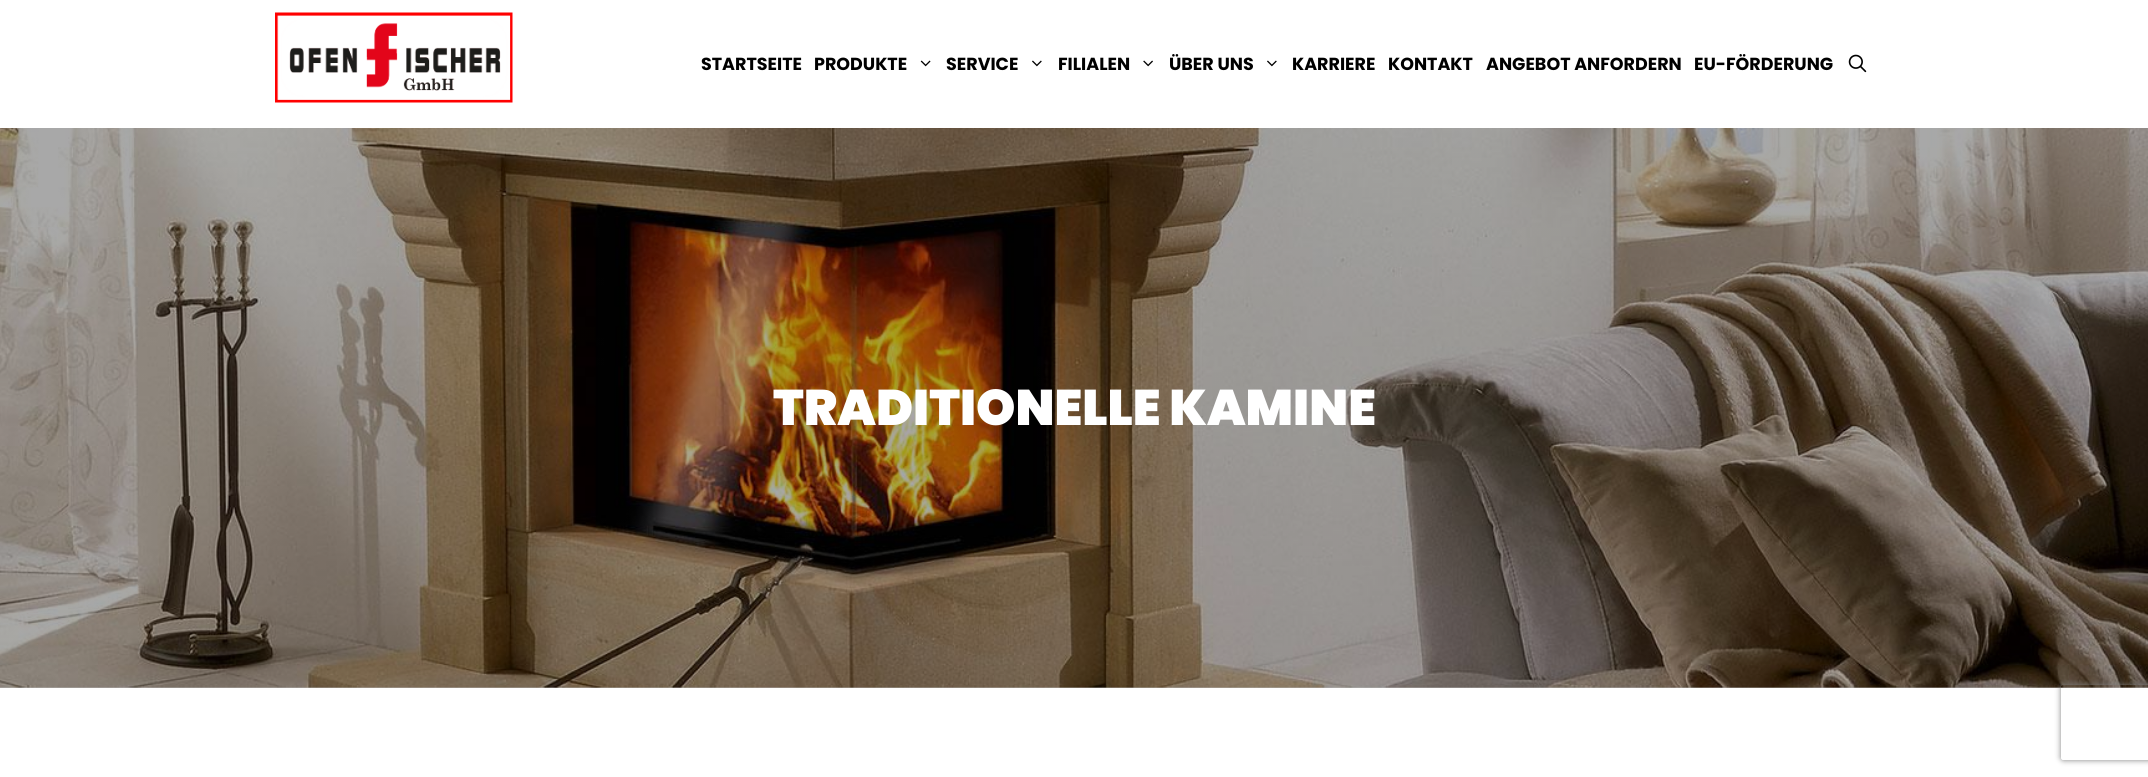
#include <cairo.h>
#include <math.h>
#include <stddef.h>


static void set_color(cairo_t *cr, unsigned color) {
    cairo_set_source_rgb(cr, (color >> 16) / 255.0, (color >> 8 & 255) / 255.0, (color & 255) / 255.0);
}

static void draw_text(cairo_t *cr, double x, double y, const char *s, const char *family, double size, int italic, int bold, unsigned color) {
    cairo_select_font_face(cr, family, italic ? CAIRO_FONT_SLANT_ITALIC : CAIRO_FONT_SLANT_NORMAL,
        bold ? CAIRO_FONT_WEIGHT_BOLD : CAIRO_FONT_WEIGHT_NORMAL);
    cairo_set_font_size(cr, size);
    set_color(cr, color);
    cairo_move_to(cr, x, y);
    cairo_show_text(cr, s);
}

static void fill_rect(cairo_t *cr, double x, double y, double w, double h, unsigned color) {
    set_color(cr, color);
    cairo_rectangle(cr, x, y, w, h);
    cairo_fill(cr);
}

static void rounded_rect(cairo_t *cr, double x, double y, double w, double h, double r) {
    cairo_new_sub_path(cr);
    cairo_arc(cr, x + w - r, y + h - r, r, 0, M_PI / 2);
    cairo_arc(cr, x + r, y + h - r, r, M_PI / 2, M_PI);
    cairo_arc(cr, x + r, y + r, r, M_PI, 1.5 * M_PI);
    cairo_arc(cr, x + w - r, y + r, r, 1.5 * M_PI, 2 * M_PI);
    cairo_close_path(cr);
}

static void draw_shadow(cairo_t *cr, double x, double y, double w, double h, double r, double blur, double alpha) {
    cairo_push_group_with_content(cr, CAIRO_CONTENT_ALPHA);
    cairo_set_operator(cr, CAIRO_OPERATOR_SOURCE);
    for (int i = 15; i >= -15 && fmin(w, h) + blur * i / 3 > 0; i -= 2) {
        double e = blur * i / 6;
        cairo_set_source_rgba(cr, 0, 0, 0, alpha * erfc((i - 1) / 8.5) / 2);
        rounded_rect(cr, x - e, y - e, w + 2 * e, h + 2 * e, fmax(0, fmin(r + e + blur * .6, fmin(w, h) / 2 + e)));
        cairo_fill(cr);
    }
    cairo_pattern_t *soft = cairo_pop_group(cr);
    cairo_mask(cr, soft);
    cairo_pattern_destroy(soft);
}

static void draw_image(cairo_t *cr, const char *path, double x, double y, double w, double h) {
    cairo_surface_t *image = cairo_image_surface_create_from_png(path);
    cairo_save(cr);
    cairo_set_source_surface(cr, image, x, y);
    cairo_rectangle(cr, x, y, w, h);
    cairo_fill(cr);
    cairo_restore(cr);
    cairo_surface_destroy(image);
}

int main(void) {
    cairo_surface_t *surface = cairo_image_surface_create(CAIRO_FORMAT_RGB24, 2148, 777);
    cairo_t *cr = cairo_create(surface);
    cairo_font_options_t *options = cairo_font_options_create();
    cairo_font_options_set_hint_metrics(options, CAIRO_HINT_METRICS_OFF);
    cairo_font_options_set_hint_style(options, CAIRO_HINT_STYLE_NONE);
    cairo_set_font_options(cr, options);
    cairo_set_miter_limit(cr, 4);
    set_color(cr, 0xFFFFFF);
    cairo_paint(cr);
    draw_image(cr, "assets/img1.png", 275, 12, 238, 91);
    draw_text(cr, 701, 70, "STARTSEITE", "Poppins", 17.5, 0, 1, 0x000000);
    draw_text(cr, 814, 70, "PRODUKTE", "Poppins", 17.5, 0, 1, 0x000000);
    draw_image(cr, "assets/img2.png", 920, 60, 11, 7);
    draw_text(cr, 946, 70, "SERVICE", "Poppins", 17.5, 0, 1, 0x000000);
    draw_image(cr, "assets/img3.png", 1032, 60, 10, 7);
    draw_text(cr, 1058, 70, "FILIALEN", "Poppins", 17.5, 0, 1, 0x000000);
    draw_image(cr, "assets/img4.png", 1143, 60, 10, 7);
    draw_text(cr, 1169, 70, "ÜBER UNS", "Poppins", 17.5, 0, 1, 0x000000);
    draw_image(cr, "assets/img3.png", 1267, 60, 10, 7);
    draw_text(cr, 1292, 70, "KARRIERE", "Poppins", 17.5, 0, 1, 0x000000);
    draw_text(cr, 1388, 70, "KONTAKT", "Poppins", 17.5, 0, 1, 0x000000);
    draw_text(cr, 1486, 70, "ANGEBOT ANFORDERN", "Poppins", 17.5, 0, 1, 0x000000);
    draw_text(cr, 1694, 70, "EU-FÖRDERUNG", "Poppins", 17.5, 0, 1, 0x000000);
    draw_image(cr, "assets/img5.png", 1848, 54, 19, 19);
    fill_rect(cr, 0, 687, 2148, 1, 0xA9A9A9);
    draw_image(cr, "assets/img6.png", 0, 128, 2148, 560);
    draw_text(cr, 773, 425, "TRADITIONELLE KAMINE", "Poppins Black", 50, 0, 0, 0xFFFFFF);
    cairo_save(cr);
    cairo_set_fill_rule(cr, CAIRO_FILL_RULE_EVEN_ODD);
    cairo_new_path(cr);
    cairo_move_to(cr, 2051, 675);
    cairo_line_to(cr, 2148, 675);
    cairo_line_to(cr, 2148, 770);
    cairo_line_to(cr, 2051, 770);
    cairo_close_path(cr);
    cairo_move_to(cr, 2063.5, 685);
    cairo_line_to(cr, 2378.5, 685);
    cairo_curve_to(cr, 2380, 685, 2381, 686, 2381, 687.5);
    cairo_line_to(cr, 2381, 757.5);
    cairo_curve_to(cr, 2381, 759, 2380, 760, 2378.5, 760);
    cairo_line_to(cr, 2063.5, 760);
    cairo_curve_to(cr, 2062, 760, 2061, 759, 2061, 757.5);
    cairo_line_to(cr, 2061, 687.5);
    cairo_curve_to(cr, 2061, 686, 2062, 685, 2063.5, 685);
    cairo_close_path(cr);
    cairo_clip(cr);
    set_color(cr, 0x808080);
    draw_shadow(cr, 2061, 685, 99, 75, 2.5, 3, 1);
    cairo_restore(cr);
    cairo_surface_write_to_png(surface, "output.png");
    cairo_font_options_destroy(options);
    cairo_destroy(cr);
    cairo_surface_destroy(surface);
    return 0;
}
